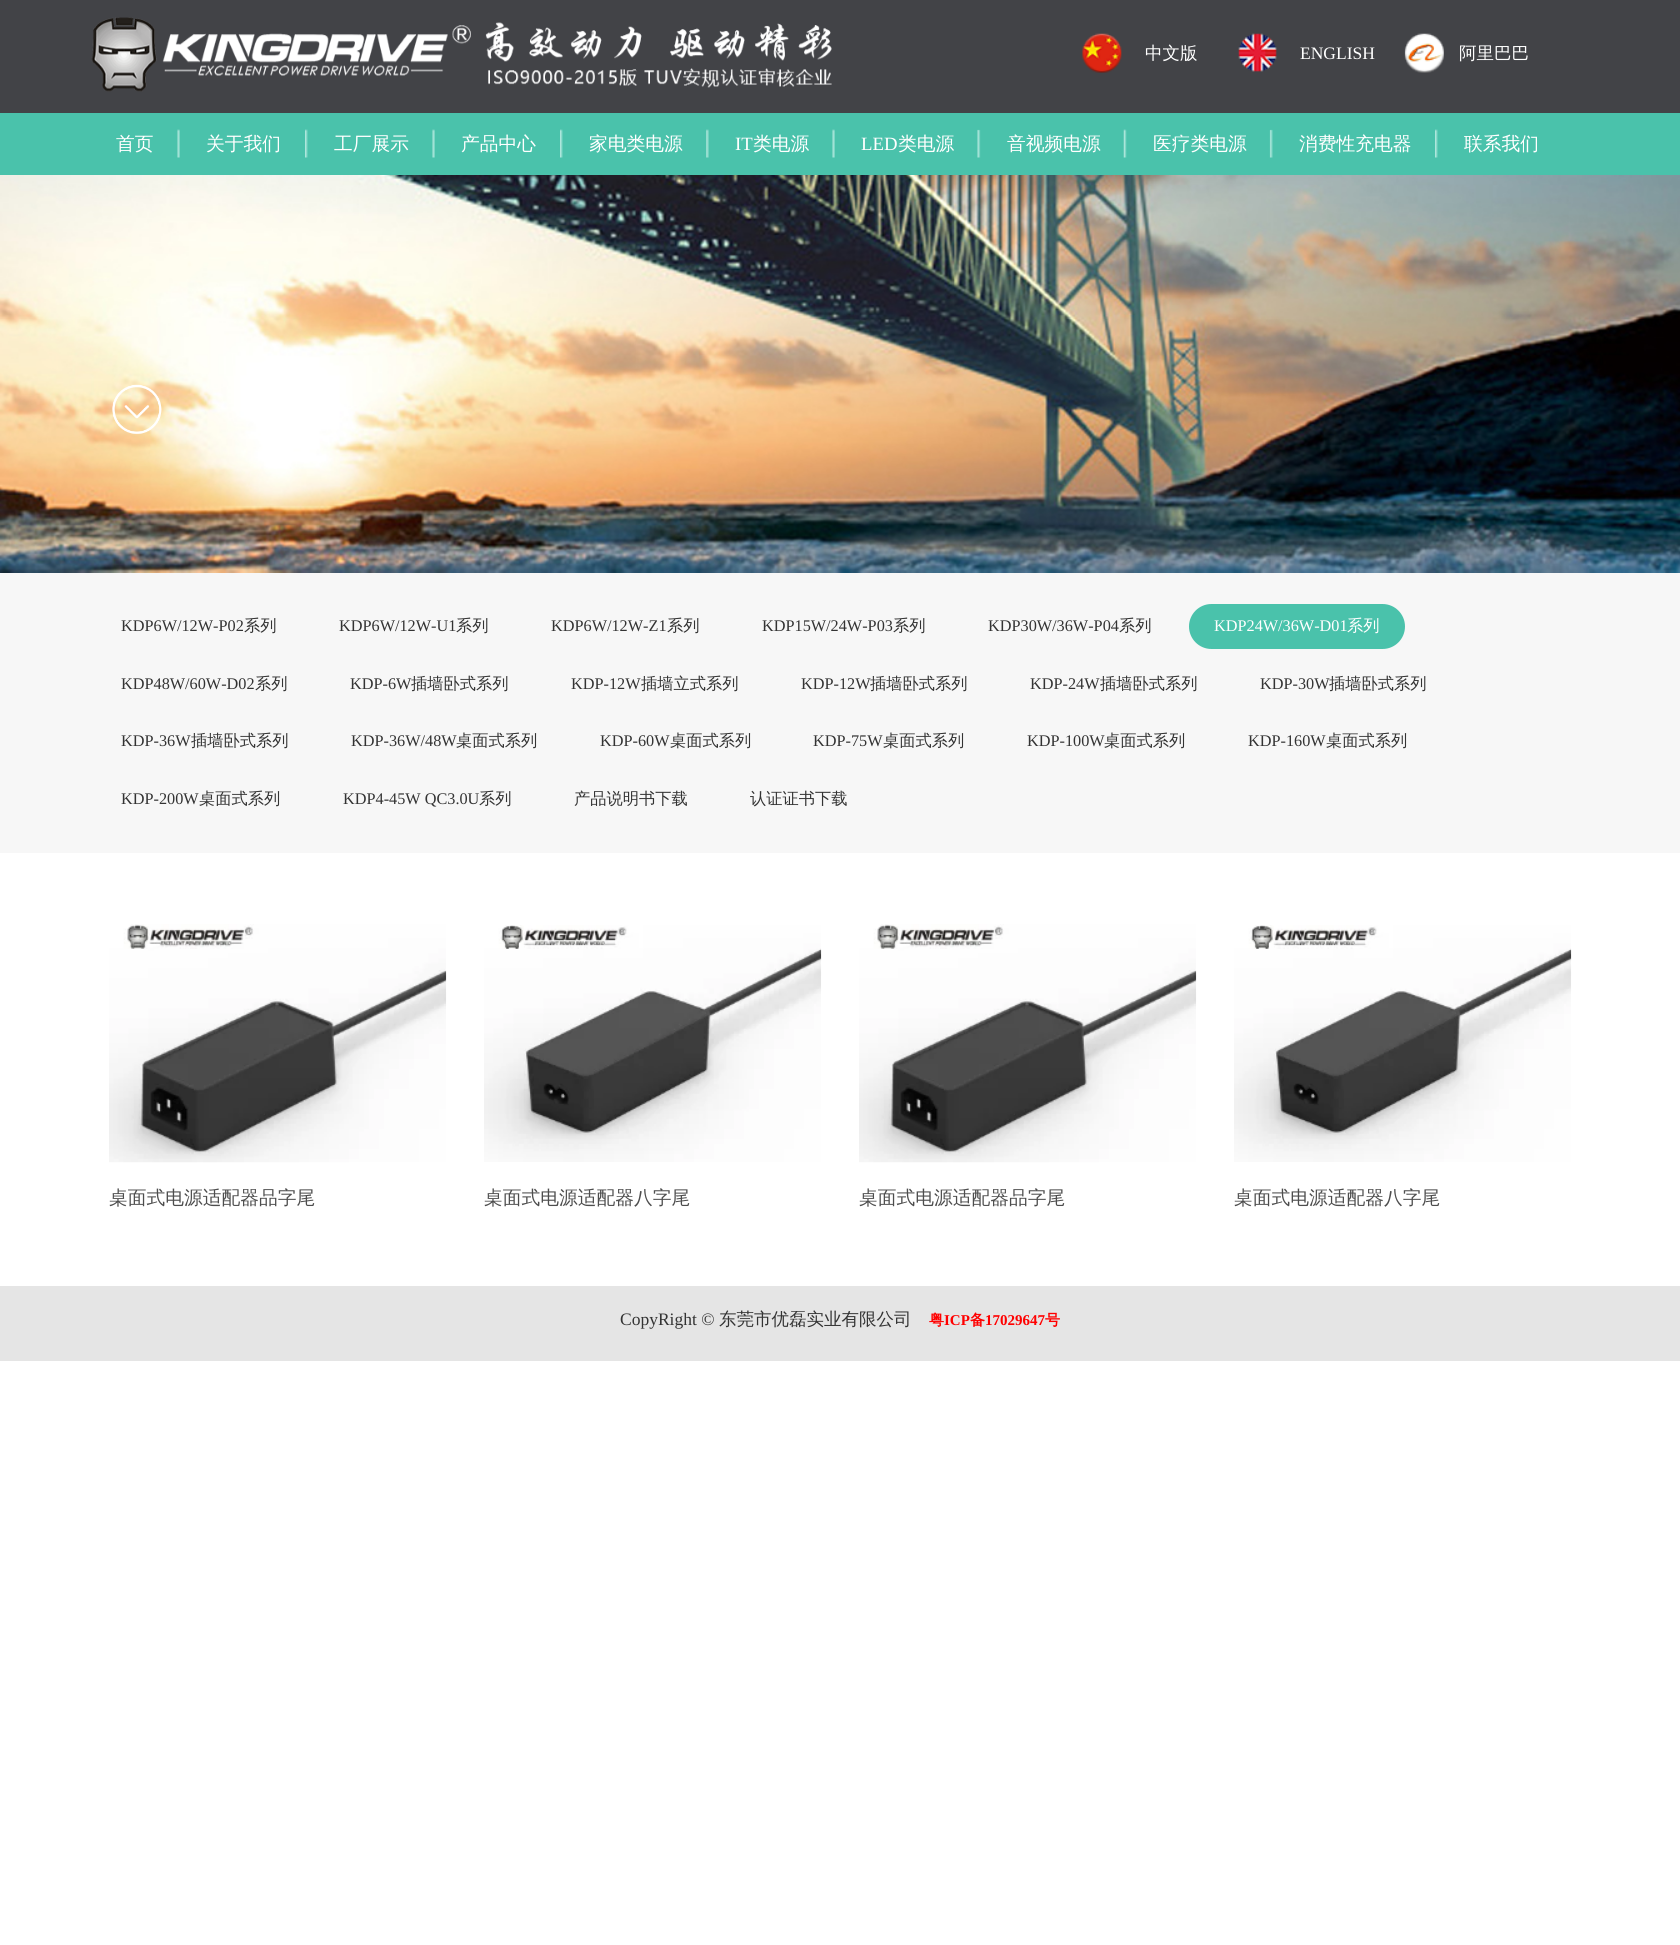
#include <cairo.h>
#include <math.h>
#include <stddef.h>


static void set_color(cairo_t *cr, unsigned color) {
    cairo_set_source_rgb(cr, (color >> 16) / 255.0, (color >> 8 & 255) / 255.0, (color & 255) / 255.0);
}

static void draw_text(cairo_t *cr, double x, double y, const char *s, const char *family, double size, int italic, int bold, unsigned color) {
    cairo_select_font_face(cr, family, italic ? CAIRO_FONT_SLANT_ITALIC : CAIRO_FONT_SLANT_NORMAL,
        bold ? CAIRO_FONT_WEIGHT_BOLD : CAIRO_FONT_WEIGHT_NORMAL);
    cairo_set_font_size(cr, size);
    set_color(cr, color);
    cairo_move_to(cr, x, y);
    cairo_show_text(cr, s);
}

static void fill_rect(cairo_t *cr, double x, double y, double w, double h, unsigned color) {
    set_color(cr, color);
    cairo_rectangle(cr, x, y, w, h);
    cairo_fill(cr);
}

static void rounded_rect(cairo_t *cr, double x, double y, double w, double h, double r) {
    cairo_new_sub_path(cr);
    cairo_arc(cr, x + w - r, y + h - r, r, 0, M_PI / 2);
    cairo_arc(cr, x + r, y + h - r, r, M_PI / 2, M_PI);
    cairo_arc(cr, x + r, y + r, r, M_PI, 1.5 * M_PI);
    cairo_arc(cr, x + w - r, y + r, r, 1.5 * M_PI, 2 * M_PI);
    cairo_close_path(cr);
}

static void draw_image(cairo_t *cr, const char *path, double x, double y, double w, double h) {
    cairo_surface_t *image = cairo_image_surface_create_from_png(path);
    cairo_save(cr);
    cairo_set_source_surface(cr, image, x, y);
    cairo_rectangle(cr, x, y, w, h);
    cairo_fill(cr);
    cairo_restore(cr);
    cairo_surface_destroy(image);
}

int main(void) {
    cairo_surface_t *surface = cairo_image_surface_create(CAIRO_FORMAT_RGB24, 1680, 1945);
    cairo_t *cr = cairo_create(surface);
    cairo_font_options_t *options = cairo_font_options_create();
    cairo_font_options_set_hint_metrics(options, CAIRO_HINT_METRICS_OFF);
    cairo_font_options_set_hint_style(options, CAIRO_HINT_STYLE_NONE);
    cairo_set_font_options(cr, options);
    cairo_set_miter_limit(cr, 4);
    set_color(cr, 0xFFFFFF);
    cairo_paint(cr);
    fill_rect(cr, 0, 0, 1680, 113, 0x424347);
    draw_image(cr, "assets/img1.png", 91, 17, 741, 75);
    draw_image(cr, "assets/img2.png", 1082, 33, 40, 40);
    draw_text(cr, 1145, 59, "中文版", "WenQuanYi Zen Hei Medium", 17.5, 0, 0, 0xFFFFFF);
    draw_image(cr, "assets/img3.png", 1238, 33, 39, 39);
    draw_text(cr, 1300, 59, "ENGLISH", "Liberation Serif", 17.5, 0, 0, 0xFFFFFF);
    draw_image(cr, "assets/img4.png", 1404, 33, 40, 40);
    draw_text(cr, 1459, 59, "阿里巴巴", "WenQuanYi Zen Hei Medium", 17.5, 0, 0, 0xFFFFFF);
    fill_rect(cr, 0, 113, 1680, 62, 0x4AC2AB);
    draw_image(cr, "assets/img5.png", 177, 129, 3, 29);
    draw_text(cr, 116, 150, "首页", "WenQuanYi Zen Hei Medium", 18.75, 0, 0, 0xFFFFFF);
    draw_image(cr, "assets/img6.png", 305, 129, 3, 29);
    draw_text(cr, 206, 150, "关于我们", "WenQuanYi Zen Hei Medium", 18.75, 0, 0, 0xFFFFFF);
    draw_image(cr, "assets/img5.png", 432, 129, 3, 29);
    draw_text(cr, 334, 150, "工厂展示", "WenQuanYi Zen Hei Medium", 18.75, 0, 0, 0xFFFFFF);
    draw_image(cr, "assets/img6.png", 560, 129, 3, 29);
    draw_text(cr, 461, 150, "产品中心", "WenQuanYi Zen Hei Medium", 18.75, 0, 0, 0xFFFFFF);
    draw_image(cr, "assets/img7.png", 706, 129, 3, 29);
    draw_text(cr, 589, 150, "家电类电源", "WenQuanYi Zen Hei Medium", 18.75, 0, 0, 0xFFFFFF);
    draw_image(cr, "assets/img5.png", 832, 129, 3, 29);
    draw_text(cr, 735, 150, "IT", "Liberation Serif", 18.75, 0, 0, 0xFFFFFF);
    draw_text(cr, 753, 150, "类电源", "WenQuanYi Zen Hei Medium", 18.75, 0, 0, 0xFFFFFF);
    draw_image(cr, "assets/img8.png", 977, 129, 4, 29);
    draw_text(cr, 861, 150, "LED", "Liberation Serif", 18.75, 0, 0, 0xFFFFFF);
    draw_text(cr, 898, 150, "类电源", "WenQuanYi Zen Hei Medium", 18.75, 0, 0, 0xFFFFFF);
    draw_image(cr, "assets/img9.png", 1123, 129, 4, 29);
    draw_text(cr, 1007, 150, "音视频电源", "WenQuanYi Zen Hei Medium", 18.75, 0, 0, 0xFFFFFF);
    draw_image(cr, "assets/img10.png", 1269, 129, 4, 29);
    draw_text(cr, 1153, 150, "医疗类电源", "WenQuanYi Zen Hei Medium", 18.75, 0, 0, 0xFFFFFF);
    draw_image(cr, "assets/img6.png", 1435, 129, 3, 29);
    draw_text(cr, 1299, 150, "消费性充电器", "WenQuanYi Zen Hei Medium", 18.75, 0, 0, 0xFFFFFF);
    draw_text(cr, 1464, 150, "联系我们", "WenQuanYi Zen Hei Medium", 18.75, 0, 0, 0xFFFFFF);
    draw_image(cr, "assets/img11.png", 0, 175, 1680, 398);
    draw_image(cr, "assets/img12.png", 112, 384, 50, 50);
    fill_rect(cr, 0, 573, 1680, 280, 0xF7F7F7);
    draw_text(cr, 121, 631, "KDP6W/12W-P02", "Liberation Serif", 16.25, 0, 0, 0x333333);
    draw_text(cr, 244, 631, "系列", "WenQuanYi Zen Hei Medium", 16.25, 0, 0, 0x333333);
    draw_text(cr, 339, 631, "KDP6W/12W-U1", "Liberation Serif", 16.25, 0, 0, 0x333333);
    draw_text(cr, 456, 631, "系列", "WenQuanYi Zen Hei Medium", 16.25, 0, 0, 0x333333);
    draw_text(cr, 551, 631, "KDP6W/12W-Z1", "Liberation Serif", 16.25, 0, 0, 0x333333);
    draw_text(cr, 667, 631, "系列", "WenQuanYi Zen Hei Medium", 16.25, 0, 0, 0x333333);
    draw_text(cr, 762, 631, "KDP15W/24W-P03", "Liberation Serif", 16.25, 0, 0, 0x333333);
    draw_text(cr, 893, 631, "系列", "WenQuanYi Zen Hei Medium", 16.25, 0, 0, 0x333333);
    draw_text(cr, 988, 631, "KDP30W/36W-P04", "Liberation Serif", 16.25, 0, 0, 0x333333);
    draw_text(cr, 1119, 631, "系列", "WenQuanYi Zen Hei Medium", 16.25, 0, 0, 0x333333);
    set_color(cr, 0x4AC2AB);
    rounded_rect(cr, 1189, 604, 216, 45, 22.5);
    cairo_fill(cr);
    draw_text(cr, 1214, 631, "KDP24W/36W-D01", "Liberation Serif", 16.25, 0, 0, 0xFFFFFF);
    draw_text(cr, 1347, 631, "系列", "WenQuanYi Zen Hei Medium", 16.25, 0, 0, 0xFFFFFF);
    draw_text(cr, 121, 689, "KDP48W/60W-D02", "Liberation Serif", 16.25, 0, 0, 0x333333);
    draw_text(cr, 255, 689, "系列", "WenQuanYi Zen Hei Medium", 16.25, 0, 0, 0x333333);
    draw_text(cr, 350, 689, "KDP-6W", "Liberation Serif", 16.25, 0, 0, 0x333333);
    draw_text(cr, 411, 689, "插墙卧式系列", "WenQuanYi Zen Hei Medium", 16.25, 0, 0, 0x333333);
    draw_text(cr, 571, 689, "KDP-12W", "Liberation Serif", 16.25, 0, 0, 0x333333);
    draw_text(cr, 641, 689, "插墙立式系列", "WenQuanYi Zen Hei Medium", 16.25, 0, 0, 0x333333);
    draw_text(cr, 801, 689, "KDP-12W", "Liberation Serif", 16.25, 0, 0, 0x333333);
    draw_text(cr, 870, 689, "插墙卧式系列", "WenQuanYi Zen Hei Medium", 16.25, 0, 0, 0x333333);
    draw_text(cr, 1030, 689, "KDP-24W", "Liberation Serif", 16.25, 0, 0, 0x333333);
    draw_text(cr, 1100, 689, "插墙卧式系列", "WenQuanYi Zen Hei Medium", 16.25, 0, 0, 0x333333);
    draw_text(cr, 1260, 689, "KDP-30W", "Liberation Serif", 16.25, 0, 0, 0x333333);
    draw_text(cr, 1329, 689, "插墙卧式系列", "WenQuanYi Zen Hei Medium", 16.25, 0, 0, 0x333333);
    draw_text(cr, 121, 746, "KDP-36W", "Liberation Serif", 16.25, 0, 0, 0x333333);
    draw_text(cr, 191, 746, "插墙卧式系列", "WenQuanYi Zen Hei Medium", 16.25, 0, 0, 0x333333);
    draw_text(cr, 351, 746, "KDP-36W/48W", "Liberation Serif", 16.25, 0, 0, 0x333333);
    draw_text(cr, 456, 746, "桌面式系列", "WenQuanYi Zen Hei Medium", 16.25, 0, 0, 0x333333);
    draw_text(cr, 600, 746, "KDP-60W", "Liberation Serif", 16.25, 0, 0, 0x333333);
    draw_text(cr, 670, 746, "桌面式系列", "WenQuanYi Zen Hei Medium", 16.25, 0, 0, 0x333333);
    draw_text(cr, 813, 746, "KDP-75W", "Liberation Serif", 16.25, 0, 0, 0x333333);
    draw_text(cr, 883, 746, "桌面式系列", "WenQuanYi Zen Hei Medium", 16.25, 0, 0, 0x333333);
    draw_text(cr, 1027, 746, "KDP-100W", "Liberation Serif", 16.25, 0, 0, 0x333333);
    draw_text(cr, 1104, 746, "桌面式系列", "WenQuanYi Zen Hei Medium", 16.25, 0, 0, 0x333333);
    draw_text(cr, 1248, 746, "KDP-160W", "Liberation Serif", 16.25, 0, 0, 0x333333);
    draw_text(cr, 1326, 746, "桌面式系列", "WenQuanYi Zen Hei Medium", 16.25, 0, 0, 0x333333);
    draw_text(cr, 121, 804, "KDP-200W", "Liberation Serif", 16.25, 0, 0, 0x333333);
    draw_text(cr, 199, 804, "桌面式系列", "WenQuanYi Zen Hei Medium", 16.25, 0, 0, 0x333333);
    draw_text(cr, 343, 804, "KDP4-45W QC3.0U", "Liberation Serif", 16.25, 0, 0, 0x333333);
    draw_text(cr, 479, 804, "系列", "WenQuanYi Zen Hei Medium", 16.25, 0, 0, 0x333333);
    draw_text(cr, 574, 804, "产品说明书下载", "WenQuanYi Zen Hei Medium", 16.25, 0, 0, 0x333333);
    draw_text(cr, 750, 804, "认证证书下载", "WenQuanYi Zen Hei Medium", 16.25, 0, 0, 0x333333);
    draw_image(cr, "assets/img13.png", 109, 924, 338, 239);
    draw_text(cr, 109, 1204, "桌面式电源适配器品字尾", "WenQuanYi Zen Hei Medium", 18.75, 0, 0, 0x4D4D4D);
    draw_image(cr, "assets/img14.png", 484, 925, 338, 237);
    draw_text(cr, 484, 1204, "桌面式电源适配器八字尾", "WenQuanYi Zen Hei Medium", 18.75, 0, 0, 0x4D4D4D);
    draw_image(cr, "assets/img15.png", 859, 924, 338, 239);
    draw_text(cr, 859, 1204, "桌面式电源适配器品字尾", "WenQuanYi Zen Hei Medium", 18.75, 0, 0, 0x4D4D4D);
    draw_image(cr, "assets/img16.png", 1234, 925, 338, 237);
    draw_text(cr, 1234, 1204, "桌面式电源适配器八字尾", "WenQuanYi Zen Hei Medium", 18.75, 0, 0, 0x4D4D4D);
    fill_rect(cr, 0, 1286, 1680, 75, 0xE5E5E5);
    draw_text(cr, 620, 1325, "CopyRight ©", "Liberation Serif", 17.5, 0, 0, 0x333333);
    draw_text(cr, 719, 1325, "东莞市优磊实业有限公司", "WenQuanYi Zen Hei Medium", 17.5, 0, 0, 0x333333);
    draw_text(cr, 929, 1325, "粤", "WenQuanYi Zen Hei", 15, 0, 1, 0xFF0000);
    draw_text(cr, 944, 1325, "ICP", "Liberation Serif", 15, 0, 1, 0xFF0000);
    draw_text(cr, 970, 1325, "备", "WenQuanYi Zen Hei", 15, 0, 1, 0xFF0000);
    draw_text(cr, 985, 1325, "17029647", "Liberation Serif", 15, 0, 1, 0xFF0000);
    draw_text(cr, 1045, 1325, "号", "WenQuanYi Zen Hei", 15, 0, 1, 0xFF0000);
    cairo_surface_write_to_png(surface, "output.png");
    cairo_font_options_destroy(options);
    cairo_destroy(cr);
    cairo_surface_destroy(surface);
    return 0;
}
